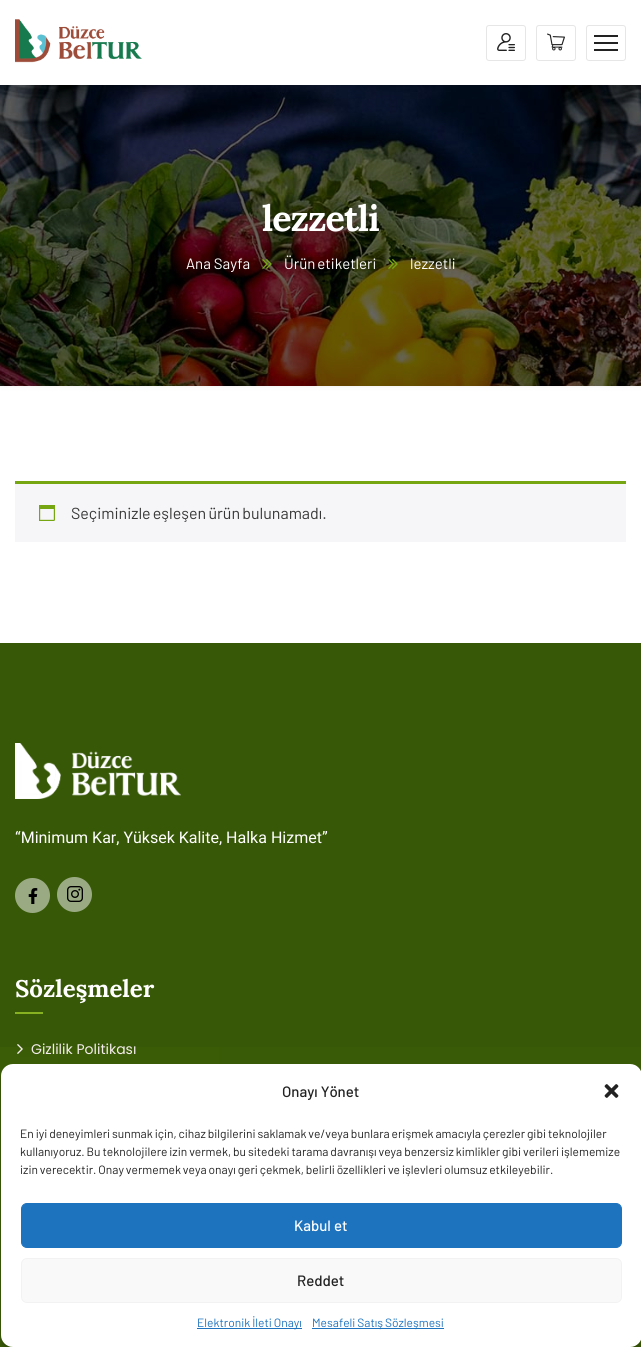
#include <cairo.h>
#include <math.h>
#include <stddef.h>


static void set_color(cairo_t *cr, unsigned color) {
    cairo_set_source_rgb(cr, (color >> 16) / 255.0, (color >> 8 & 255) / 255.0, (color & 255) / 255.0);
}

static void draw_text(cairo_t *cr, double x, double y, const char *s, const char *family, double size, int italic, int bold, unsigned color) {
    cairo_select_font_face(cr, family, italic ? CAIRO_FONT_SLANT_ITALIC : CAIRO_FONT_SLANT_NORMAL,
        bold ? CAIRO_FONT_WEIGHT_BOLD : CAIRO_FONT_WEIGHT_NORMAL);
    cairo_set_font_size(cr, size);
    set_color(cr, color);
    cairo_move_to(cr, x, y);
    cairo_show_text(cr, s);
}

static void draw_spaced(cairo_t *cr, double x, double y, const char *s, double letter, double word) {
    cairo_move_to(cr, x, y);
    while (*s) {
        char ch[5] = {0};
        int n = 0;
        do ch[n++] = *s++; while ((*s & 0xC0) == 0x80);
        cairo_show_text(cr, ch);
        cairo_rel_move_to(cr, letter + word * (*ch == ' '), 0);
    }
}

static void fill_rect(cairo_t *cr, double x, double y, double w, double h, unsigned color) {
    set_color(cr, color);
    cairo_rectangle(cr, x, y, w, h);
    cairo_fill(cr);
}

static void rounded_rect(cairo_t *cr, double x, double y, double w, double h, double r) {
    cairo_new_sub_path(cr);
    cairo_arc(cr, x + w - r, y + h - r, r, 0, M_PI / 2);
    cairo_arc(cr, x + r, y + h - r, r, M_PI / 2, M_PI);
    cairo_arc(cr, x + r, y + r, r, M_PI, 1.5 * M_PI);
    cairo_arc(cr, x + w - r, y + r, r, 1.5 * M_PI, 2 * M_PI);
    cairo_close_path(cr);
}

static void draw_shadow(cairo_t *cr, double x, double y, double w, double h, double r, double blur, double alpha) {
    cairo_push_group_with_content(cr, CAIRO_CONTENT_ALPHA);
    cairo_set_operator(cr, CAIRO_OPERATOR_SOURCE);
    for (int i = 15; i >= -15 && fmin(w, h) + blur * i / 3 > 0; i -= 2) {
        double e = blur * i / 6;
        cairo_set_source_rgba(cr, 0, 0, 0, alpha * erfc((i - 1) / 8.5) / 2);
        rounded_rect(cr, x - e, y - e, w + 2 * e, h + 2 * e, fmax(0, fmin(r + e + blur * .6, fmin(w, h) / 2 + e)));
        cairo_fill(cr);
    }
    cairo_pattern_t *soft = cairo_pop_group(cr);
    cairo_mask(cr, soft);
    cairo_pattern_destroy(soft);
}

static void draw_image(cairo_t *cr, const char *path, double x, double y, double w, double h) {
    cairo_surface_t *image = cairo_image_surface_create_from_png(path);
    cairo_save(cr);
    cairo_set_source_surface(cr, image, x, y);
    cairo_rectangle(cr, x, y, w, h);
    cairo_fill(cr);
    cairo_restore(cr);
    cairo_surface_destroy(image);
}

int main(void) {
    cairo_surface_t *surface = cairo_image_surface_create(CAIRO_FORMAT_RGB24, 641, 1347);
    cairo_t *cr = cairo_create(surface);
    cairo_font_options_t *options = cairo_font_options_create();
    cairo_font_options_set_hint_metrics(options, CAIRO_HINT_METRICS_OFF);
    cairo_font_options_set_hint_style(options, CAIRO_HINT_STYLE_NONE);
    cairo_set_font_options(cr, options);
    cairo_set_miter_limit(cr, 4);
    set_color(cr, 0xFFFFFF);
    cairo_paint(cr);
    set_color(cr, 0x0C0C0C);
    draw_shadow(cr, 0, 82, 641, 301, 0, 3.5, 0.2);
    draw_image(cr, "assets/img4.png", 0, 85, 641, 301);
    set_color(cr, 0x000000);
    draw_shadow(cr, 0, 0, 641, 85, 0, 2.5, 0.15);
    fill_rect(cr, 0, 0, 641, 85, 0xFFFFFF);
    draw_image(cr, "assets/img1.png", 15, 19, 127, 44);
    rounded_rect(cr, 486.5, 25.5, 39, 35, 2.5);
    set_color(cr, 0xE6E6E6);
    cairo_set_line_width(cr, 1);
    cairo_stroke(cr);
    draw_image(cr, "assets/img2.png", 497, 33, 18, 18);
    rounded_rect(cr, 536.5, 25.5, 39, 35, 2.5);
    cairo_stroke(cr);
    draw_image(cr, "assets/img3.png", 547, 33, 18, 18);
    rounded_rect(cr, 586.5, 25.5, 39, 35, 2.5);
    cairo_stroke(cr);
    fill_rect(cr, 594, 35, 24, 2, 0x222222);
    fill_rect(cr, 594, 42, 24, 2, 0x222222);
    fill_rect(cr, 594, 49, 24, 2, 0x222222);
    cairo_select_font_face(cr, "Lora", CAIRO_FONT_SLANT_NORMAL, CAIRO_FONT_WEIGHT_BOLD);
    cairo_set_font_size(cr, 36);
    set_color(cr, 0xFFFFFF);
    draw_spaced(cr, 262, 231, "lezzetli", -1, 0);
    draw_text(cr, 186, 269, "Ana Sayfa", "Barlow", 15, 0, 0, 0xFFFFFF);
    draw_image(cr, "assets/img5.png", 262, 259, 10, 10);
    draw_spaced(cr, 284, 269, "Ürün etiketleri", 0, -1);
    draw_image(cr, "assets/img6.png", 388, 259, 10, 10);
    draw_text(cr, 410, 269, "lezzetli", "Barlow", 15, 0, 0, 0xFFFFFF);
    fill_rect(cr, 15, 484, 611, 58, 0xF6F5F8);
    fill_rect(cr, 15, 481, 611, 3, 0x76A713);
    draw_image(cr, "assets/img7.png", 39, 505, 16, 16);
    cairo_set_font_size(cr, 16);
    set_color(cr, 0x383838);
    draw_spaced(cr, 71, 519, "Seçiminizle eşleşen ürün bulunamadı.", 0, -1);
    fill_rect(cr, 0, 643, 641, 404, 0x375807);
    draw_image(cr, "assets/img8.png", 0, 1047, 641, 300);
    draw_image(cr, "assets/img9.png", 15, 743, 166, 56);
    draw_text(cr, 15, 843, "“Minimum Kar, Yüksek Kalite, Halka Hizmet”", "Roboto", 16, 0, 0, 0xFFFFFF);
    set_color(cr, 0x9AAB83);
    cairo_new_path(cr);
    cairo_arc(cr, 32.5, 895.5, 17.5, 0, 2 * M_PI);
    cairo_fill(cr);
    draw_image(cr, "assets/img10.png", 28, 888, 10, 16);
    cairo_arc(cr, 74.5, 894.5, 17.5, 0, 2 * M_PI);
    cairo_fill(cr);
    draw_image(cr, "assets/img11.png", 67, 886, 16, 16);
    draw_text(cr, 15, 997, "Sözleşmeler", "Lora", 24, 0, 1, 0xFFFFFF);
    fill_rect(cr, 15, 1012, 28, 2, 0x88B121);
    draw_image(cr, "assets/img12.png", 17, 1044, 6, 10);
    draw_text(cr, 31, 1054, "Gizlilik Politikası", "Poppins", 14, 0, 0, 0xF4ECEC);
    cairo_save(cr);
    cairo_set_fill_rule(cr, CAIRO_FILL_RULE_EVEN_ODD);
    cairo_new_path(cr);
    cairo_move_to(cr, 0, 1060);
    cairo_line_to(cr, 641, 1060);
    cairo_line_to(cr, 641, 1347);
    cairo_line_to(cr, 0, 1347);
    cairo_close_path(cr);
    cairo_move_to(cr, 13, 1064);
    cairo_line_to(cr, 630, 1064);
    cairo_curve_to(cr, 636.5, 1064, 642, 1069.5, 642, 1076);
    cairo_line_to(cr, 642, 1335);
    cairo_curve_to(cr, 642, 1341.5, 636.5, 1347, 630, 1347);
    cairo_line_to(cr, 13, 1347);
    cairo_curve_to(cr, 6.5, 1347, 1, 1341.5, 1, 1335);
    cairo_line_to(cr, 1, 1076);
    cairo_curve_to(cr, 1, 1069.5, 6.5, 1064, 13, 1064);
    cairo_close_path(cr);
    cairo_clip(cr);
    set_color(cr, 0x000000);
    draw_shadow(cr, 1, 1070, 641, 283, 12, 3, 0.23);
    cairo_restore(cr);
    set_color(cr, 0xFFFFFF);
    rounded_rect(cr, 1, 1064, 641, 283, 12);
    cairo_fill(cr);
    draw_text(cr, 282, 1097, "Onayı Yönet", "Barlow Medium", 15, 0, 0, 0x222222);
    draw_image(cr, "assets/img13.png", 604, 1084, 15, 14);
    cairo_select_font_face(cr, "Barlow", CAIRO_FONT_SLANT_NORMAL, CAIRO_FONT_WEIGHT_NORMAL);
    cairo_set_font_size(cr, 12);
    draw_spaced(cr, 20, 1138, "En iyi deneyimleri sunmak için, cihaz bilgilerini saklamak ve/veya bunlara erişmek amacıyla çerezler gibi teknolojiler", 0, -0.5);
    draw_spaced(cr, 20, 1156, "kullanıyoruz. Bu teknolojilere izin vermek, bu sitedeki tarama davranışı veya benzersiz kimlikler gibi verileri işlememize", 0, -0.5);
    draw_spaced(cr, 20, 1174, "izin verecektir. Onay vermemek veya onayı geri çekmek, belirli özellikleri ve işlevleri olumsuz etkileyebilir.", 0, -0.5);
    set_color(cr, 0x1E73BE);
    rounded_rect(cr, 21.5, 1203.5, 600, 44, 5.5);
    cairo_fill_preserve(cr);
    cairo_stroke(cr);
    draw_text(cr, 294, 1231, "Kabul et", "Barlow Medium", 15, 0, 0, 0xFFFFFF);
    set_color(cr, 0xF9F9F9);
    rounded_rect(cr, 21.5, 1258.5, 600, 44, 5.5);
    cairo_fill_preserve(cr);
    set_color(cr, 0xF2F2F2);
    cairo_stroke(cr);
    draw_text(cr, 297, 1286, "Reddet", "Barlow Medium", 15, 0, 0, 0x222222);
    fill_rect(cr, 197, 1328, 105, 1, 0x1E73BE);
    cairo_select_font_face(cr, "Barlow", CAIRO_FONT_SLANT_NORMAL, CAIRO_FONT_WEIGHT_NORMAL);
    cairo_set_font_size(cr, 12);
    draw_spaced(cr, 197, 1327, "Elektronik İleti Onayı", 0, -0.5);
    fill_rect(cr, 312, 1328, 132, 1, 0x1E73BE);
    draw_spaced(cr, 312, 1327, "Mesafeli Satış Sözleşmesi", 0, -0.5);
    cairo_surface_write_to_png(surface, "output.png");
    cairo_font_options_destroy(options);
    cairo_destroy(cr);
    cairo_surface_destroy(surface);
    return 0;
}
